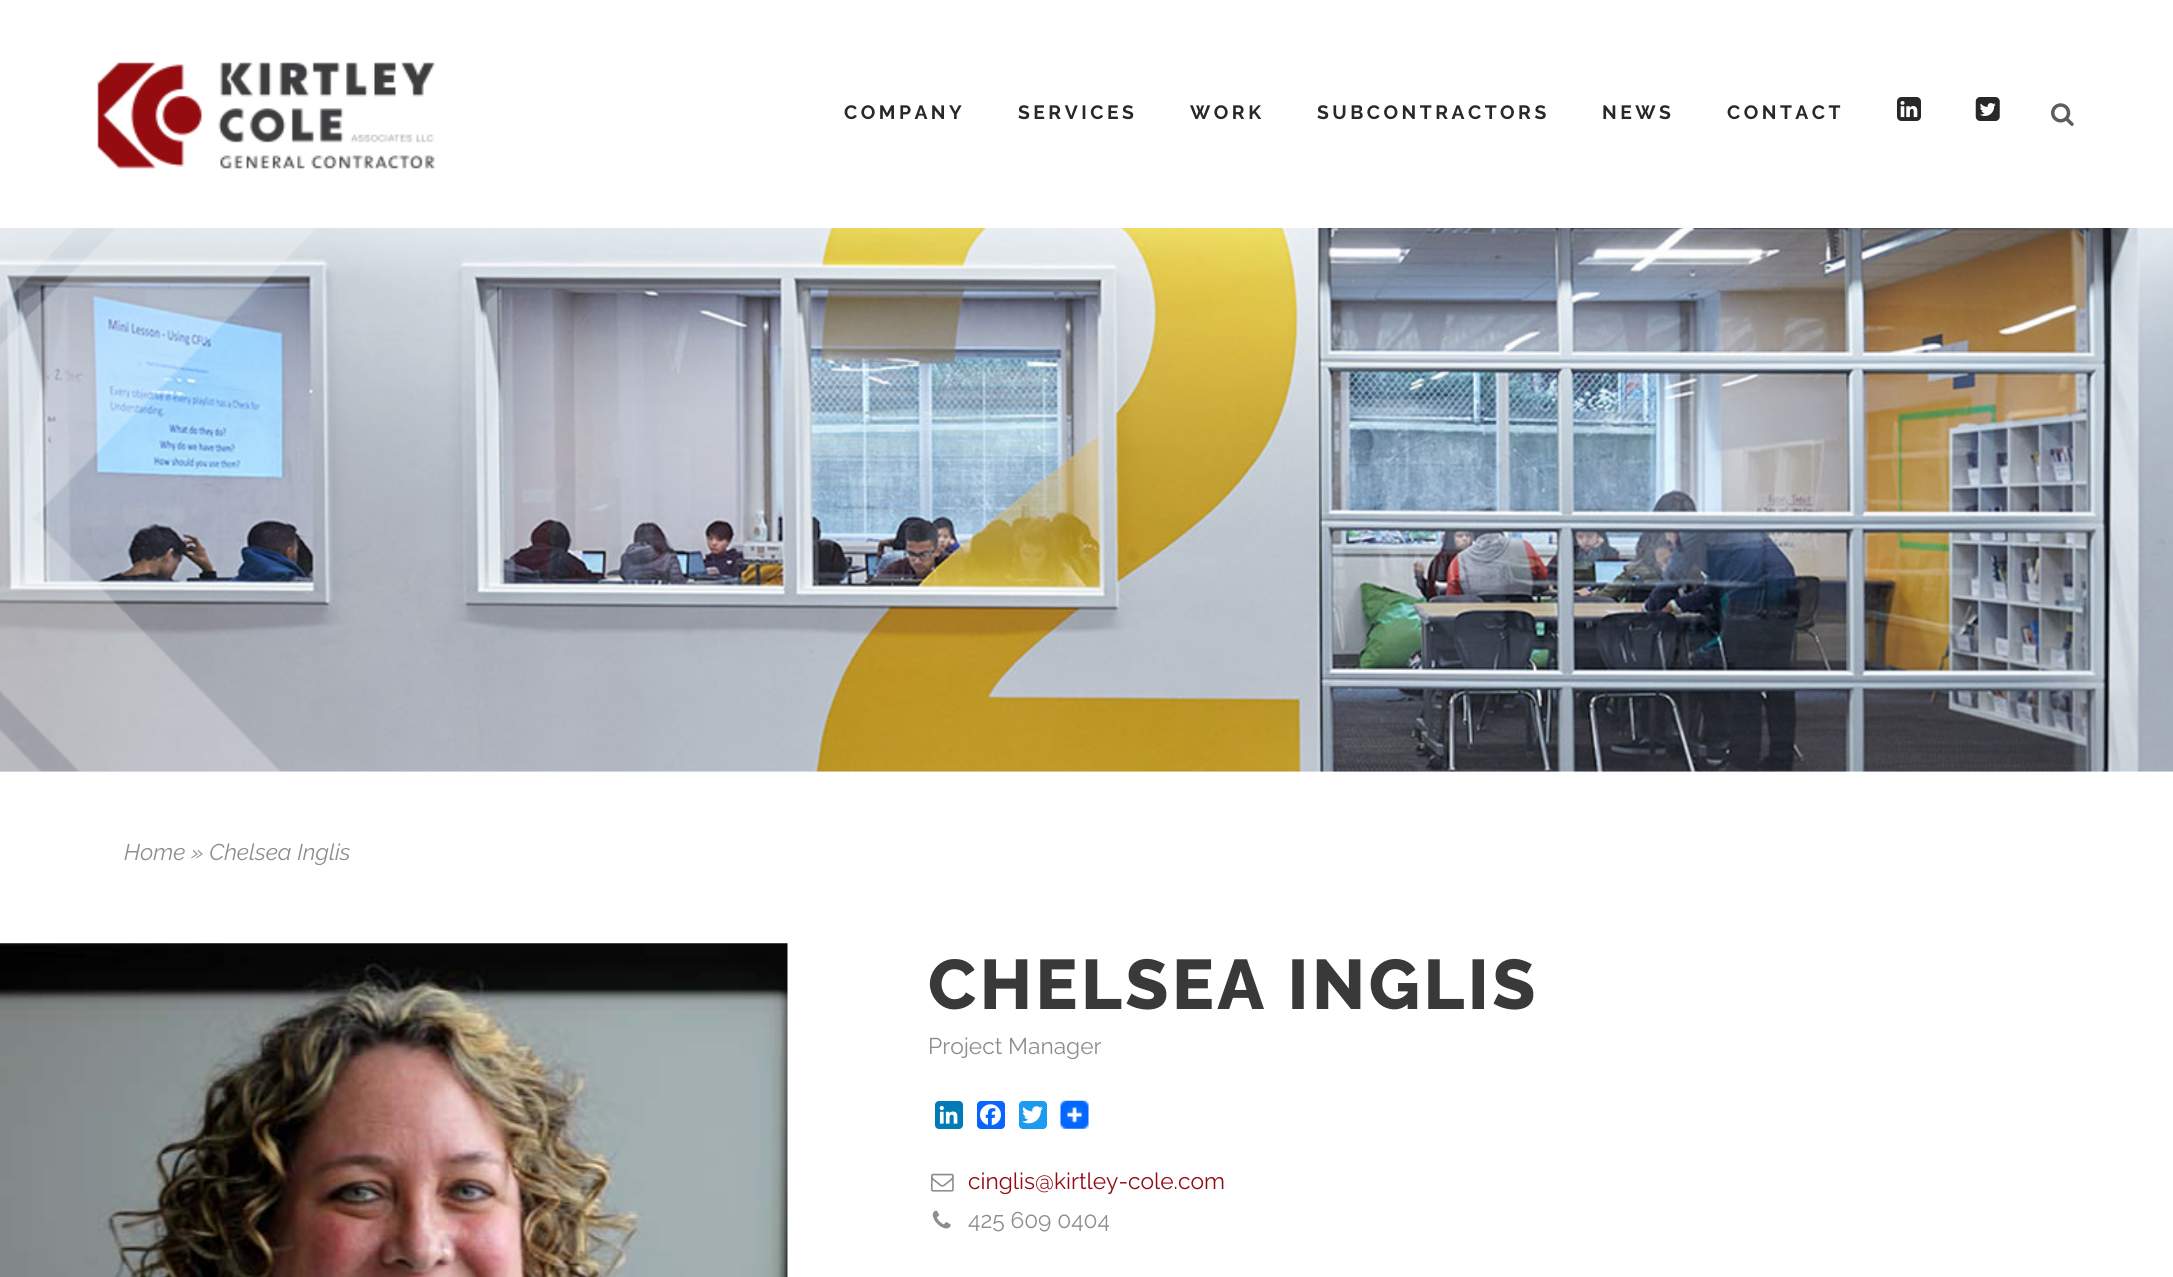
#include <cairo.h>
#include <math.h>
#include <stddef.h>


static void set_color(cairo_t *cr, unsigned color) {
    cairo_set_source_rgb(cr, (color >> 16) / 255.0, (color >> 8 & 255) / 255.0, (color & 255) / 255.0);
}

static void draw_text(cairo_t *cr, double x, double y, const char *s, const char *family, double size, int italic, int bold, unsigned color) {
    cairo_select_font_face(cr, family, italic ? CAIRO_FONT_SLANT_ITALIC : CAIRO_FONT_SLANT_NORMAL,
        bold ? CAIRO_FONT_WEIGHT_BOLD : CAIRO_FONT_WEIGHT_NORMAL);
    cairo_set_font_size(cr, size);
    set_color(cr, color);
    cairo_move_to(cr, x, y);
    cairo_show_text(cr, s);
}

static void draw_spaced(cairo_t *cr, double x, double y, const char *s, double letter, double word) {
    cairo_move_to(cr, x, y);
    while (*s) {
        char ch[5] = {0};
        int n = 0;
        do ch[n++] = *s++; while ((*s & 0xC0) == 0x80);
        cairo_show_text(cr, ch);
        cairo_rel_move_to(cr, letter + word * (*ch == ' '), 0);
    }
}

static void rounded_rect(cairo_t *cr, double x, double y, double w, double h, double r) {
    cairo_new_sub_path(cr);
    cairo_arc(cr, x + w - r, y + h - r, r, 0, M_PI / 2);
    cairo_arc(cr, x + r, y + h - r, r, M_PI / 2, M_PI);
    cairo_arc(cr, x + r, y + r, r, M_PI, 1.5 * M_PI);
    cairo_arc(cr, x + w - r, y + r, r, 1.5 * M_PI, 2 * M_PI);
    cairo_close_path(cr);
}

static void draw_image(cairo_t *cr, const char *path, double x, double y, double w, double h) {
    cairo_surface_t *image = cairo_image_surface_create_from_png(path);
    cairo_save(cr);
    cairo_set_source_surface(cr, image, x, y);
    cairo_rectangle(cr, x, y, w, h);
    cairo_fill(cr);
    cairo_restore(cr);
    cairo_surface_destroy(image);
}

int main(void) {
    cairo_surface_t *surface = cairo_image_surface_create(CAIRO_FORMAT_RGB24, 2173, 1277);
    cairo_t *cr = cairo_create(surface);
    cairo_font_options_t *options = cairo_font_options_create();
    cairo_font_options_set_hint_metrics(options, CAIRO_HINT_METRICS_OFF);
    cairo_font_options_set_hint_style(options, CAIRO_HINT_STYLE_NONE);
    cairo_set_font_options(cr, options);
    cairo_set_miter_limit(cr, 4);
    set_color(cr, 0xFFFFFF);
    cairo_paint(cr);
    draw_image(cr, "assets/img1.png", 97, 62, 338, 107);
    cairo_select_font_face(cr, "Raleway", CAIRO_FONT_SLANT_NORMAL, CAIRO_FONT_WEIGHT_BOLD);
    cairo_set_font_size(cr, 19.25);
    set_color(cr, 0x282828);
    draw_spaced(cr, 844, 119, "COMPANY", 3.5, 0);
    draw_spaced(cr, 1018, 119, "SERVICES", 3.5, 0);
    draw_spaced(cr, 1190, 119, "WORK", 3.5, 0);
    draw_spaced(cr, 1317, 119, "SUBCONTRACTORS", 3.5, 0);
    draw_spaced(cr, 1602, 119, "NEWS", 3.5, 0);
    draw_spaced(cr, 1727, 119, "CONTACT", 3.5, 0);
    draw_image(cr, "assets/img2.png", 1897, 97, 24, 24);
    draw_image(cr, "assets/img3.png", 1975, 97, 25, 24);
    draw_image(cr, "assets/img4.png", 2051, 103, 23, 23);
    draw_image(cr, "assets/img5.png", 0, 228, 2173, 544);
    draw_image(cr, "assets/img6.png", 0, 228, 316, 544);
    draw_text(cr, 124, 860, "Home » Chelsea Inglis", "Raleway", 22.75, 1, 0, 0x8D8D8D);
    draw_image(cr, "assets/img7.png", 0, 943, 788, 334);
    cairo_select_font_face(cr, "Raleway ExtraBold", CAIRO_FONT_SLANT_NORMAL, CAIRO_FONT_WEIGHT_NORMAL);
    cairo_set_font_size(cr, 70);
    set_color(cr, 0x393939);
    draw_spaced(cr, 928, 1009, "CHELSEA INGLIS", 3.5, 0);
    draw_text(cr, 928, 1054, "Project Manager", "Raleway", 22.75, 0, 0, 0x8D8D8D);
    set_color(cr, 0x007BB5);
    rounded_rect(cr, 935, 1101, 28, 28, 4);
    cairo_fill(cr);
    draw_image(cr, "assets/img8.png", 939, 1105, 19, 19);
    set_color(cr, 0x0866FF);
    rounded_rect(cr, 977, 1101, 28, 28, 4);
    cairo_fill(cr);
    draw_image(cr, "assets/img9.png", 980, 1104, 21, 22);
    set_color(cr, 0x1D9BF0);
    rounded_rect(cr, 1019, 1101, 28, 28, 4);
    cairo_fill(cr);
    draw_image(cr, "assets/img10.png", 1022, 1106, 21, 18);
    draw_image(cr, "assets/img11.png", 1060, 1100, 29, 29);
    draw_image(cr, "assets/img12.png", 931, 1173, 23, 19);
    draw_text(cr, 968, 1189, "cinglis@kirtley-cole.com", "Raleway", 22.75, 0, 0, 0x940B13);
    draw_image(cr, "assets/img13.png", 932, 1210, 19, 19);
    draw_text(cr, 968, 1228, "425 609 0404", "Raleway", 22.75, 0, 0, 0x8D8D8D);
    cairo_surface_write_to_png(surface, "output.png");
    cairo_font_options_destroy(options);
    cairo_destroy(cr);
    cairo_surface_destroy(surface);
    return 0;
}
